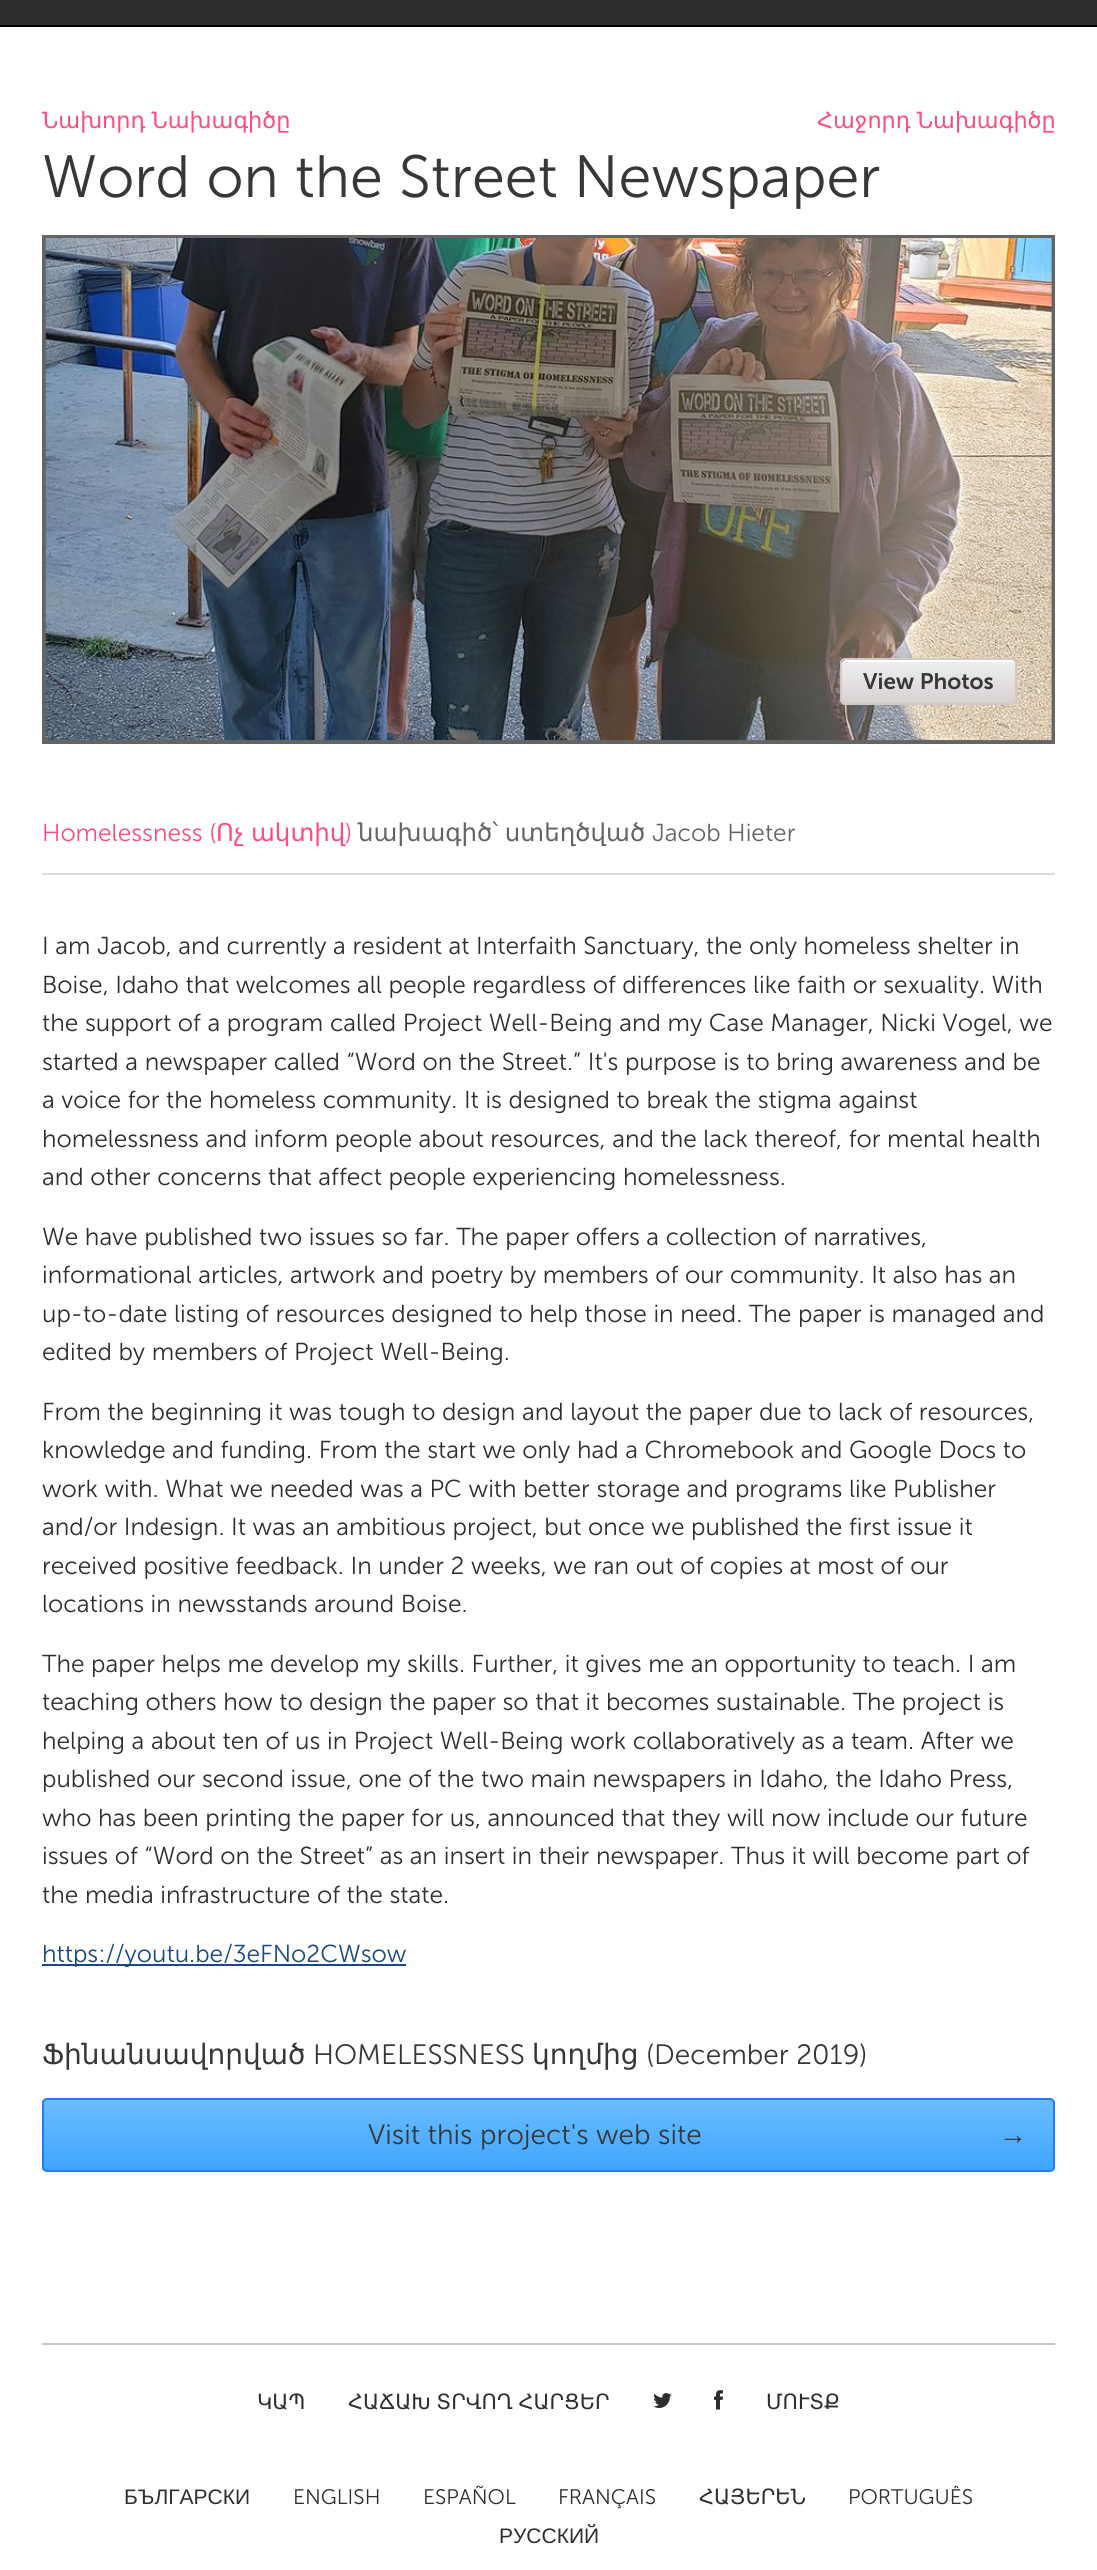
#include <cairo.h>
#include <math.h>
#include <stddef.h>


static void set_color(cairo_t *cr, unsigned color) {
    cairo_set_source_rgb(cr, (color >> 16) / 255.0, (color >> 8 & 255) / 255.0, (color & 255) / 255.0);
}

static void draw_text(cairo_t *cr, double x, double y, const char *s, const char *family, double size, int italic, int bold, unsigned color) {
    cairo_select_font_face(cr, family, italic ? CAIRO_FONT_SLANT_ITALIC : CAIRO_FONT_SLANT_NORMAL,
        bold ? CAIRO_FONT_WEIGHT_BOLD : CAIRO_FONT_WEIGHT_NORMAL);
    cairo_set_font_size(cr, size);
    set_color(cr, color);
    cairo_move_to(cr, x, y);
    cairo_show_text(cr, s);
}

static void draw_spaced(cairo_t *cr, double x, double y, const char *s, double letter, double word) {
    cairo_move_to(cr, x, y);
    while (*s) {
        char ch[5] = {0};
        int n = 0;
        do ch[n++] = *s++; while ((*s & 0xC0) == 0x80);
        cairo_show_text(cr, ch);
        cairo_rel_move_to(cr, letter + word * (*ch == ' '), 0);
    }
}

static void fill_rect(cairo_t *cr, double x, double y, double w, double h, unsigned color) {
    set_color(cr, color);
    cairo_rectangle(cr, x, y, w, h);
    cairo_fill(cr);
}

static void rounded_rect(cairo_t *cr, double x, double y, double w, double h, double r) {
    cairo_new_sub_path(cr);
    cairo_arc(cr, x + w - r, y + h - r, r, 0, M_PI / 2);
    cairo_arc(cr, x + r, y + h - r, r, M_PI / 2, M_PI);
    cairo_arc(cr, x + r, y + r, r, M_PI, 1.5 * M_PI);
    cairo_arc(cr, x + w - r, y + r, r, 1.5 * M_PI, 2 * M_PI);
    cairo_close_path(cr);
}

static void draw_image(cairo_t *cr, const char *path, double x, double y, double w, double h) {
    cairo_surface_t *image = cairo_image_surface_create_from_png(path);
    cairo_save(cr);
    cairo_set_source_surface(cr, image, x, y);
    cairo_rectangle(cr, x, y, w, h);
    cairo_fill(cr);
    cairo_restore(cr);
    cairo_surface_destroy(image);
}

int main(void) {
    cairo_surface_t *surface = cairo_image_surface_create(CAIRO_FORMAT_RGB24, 1097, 2570);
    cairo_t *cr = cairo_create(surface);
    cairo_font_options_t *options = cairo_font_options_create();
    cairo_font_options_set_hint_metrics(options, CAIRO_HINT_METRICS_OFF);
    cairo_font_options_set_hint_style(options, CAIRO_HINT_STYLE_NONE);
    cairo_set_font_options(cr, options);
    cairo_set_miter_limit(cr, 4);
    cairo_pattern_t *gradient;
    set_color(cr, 0xFFFFFF);
    cairo_paint(cr);
    fill_rect(cr, 0, 0, 1097, 25, 0x2D2D2D);
    fill_rect(cr, 0, 25, 1097, 2, 0x000000);
    cairo_select_font_face(cr, "DejaVu Sans", CAIRO_FONT_SLANT_NORMAL, CAIRO_FONT_WEIGHT_NORMAL);
    cairo_set_font_size(cr, 22.4);
    set_color(cr, 0xFF4B7E);
    draw_spaced(cr, 42, 128, "Նախորդ Նախագիծը", 0, -1);
    draw_spaced(cr, 817, 128, "Հաջորդ Նախագիծը", 0, -1);
    draw_text(cr, 42, 197, "Word on the Street Newspaper", "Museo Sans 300 Light", 59.5, 0, 0, 0x373737);
    fill_rect(cr, 42, 235, 1013, 509, 0x646464);
    draw_image(cr, "assets/img1.png", 45, 238, 1007, 503);
    gradient = cairo_pattern_create_linear(928, 660, 928, 704);
    cairo_pattern_add_color_stop_rgba(gradient, 0, 0.941, 0.941, 0.941, 1);
    cairo_pattern_add_color_stop_rgba(gradient, 1, 0.847, 0.816, 0.816, 1);
    cairo_set_source(cr, gradient);
    cairo_pattern_destroy(gradient);
    rounded_rect(cr, 842, 660, 173, 44, 4);
    cairo_fill(cr);
    set_color(cr, 0xFFFFFF);
    cairo_new_path(cr);
    cairo_move_to(cr, 845, 662);
    cairo_line_to(cr, 1012, 662);
    cairo_curve_to(cr, 1013, 662, 1015, 663, 1015, 665);
    cairo_line_to(cr, 1015, 664);
    cairo_curve_to(cr, 1015, 662, 1013, 660, 1011, 660);
    cairo_line_to(cr, 846, 660);
    cairo_curve_to(cr, 844, 660, 842, 662, 842, 664);
    cairo_line_to(cr, 842, 665);
    cairo_curve_to(cr, 842, 663, 843, 662, 845, 662);
    cairo_close_path(cr);
    cairo_fill(cr);
    rounded_rect(cr, 841, 659, 175, 45, 4);
    set_color(cr, 0xD1C8C8);
    cairo_stroke(cr);
    draw_text(cr, 863, 689, "View Photos", "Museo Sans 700 SemiBold", 22.4, 0, 0, 0x373737);
    fill_rect(cr, 42, 873, 1013, 2, 0xDCDCDC);
    draw_text(cr, 42, 841, "Homelessness (", "Museo Sans 300 Light", 24.5, 0, 0, 0xFF4B7E);
    draw_text(cr, 216, 841, "Ոչ", "DejaVu Sans", 24.5, 0, 0, 0xFF4B7E);
    draw_text(cr, 251, 841, "ակտիվ", "DejaVu Sans", 24.5, 0, 0, 0xFF4B7E);
    draw_text(cr, 345, 841, ")", "Museo Sans 300 Light", 24.5, 0, 0, 0xFF4B7E);
    cairo_select_font_face(cr, "DejaVu Sans", CAIRO_FONT_SLANT_NORMAL, CAIRO_FONT_WEIGHT_NORMAL);
    set_color(cr, 0x646464);
    draw_spaced(cr, 358, 841, "նախագիծ՝ ստեղծված", 0, -1);
    draw_text(cr, 652, 841, "Jacob Hieter", "Museo Sans 300 Light", 24.5, 0, 0, 0x646464);
    draw_text(cr, 42, 954, "I am Jacob, and currently a resident at Interfaith Sanctuary, the only homeless shelter in", "Museo Sans 300 Light", 24.5, 0, 0, 0x2E2E2E);
    draw_text(cr, 42, 993, "Boise, Idaho that welcomes all people regardless of differences like faith or sexuality. With", "Museo Sans 300 Light", 24.5, 0, 0, 0x2E2E2E);
    draw_text(cr, 42, 1031, "the support of a program called Project Well-Being and my Case Manager, Nicki Vogel, we", "Museo Sans 300 Light", 24.5, 0, 0, 0x2E2E2E);
    draw_text(cr, 42, 1070, "started a newspaper called “Word on the Street.” It's purpose is to bring awareness and be", "Museo Sans 300 Light", 24.5, 0, 0, 0x2E2E2E);
    draw_text(cr, 42, 1108, "a voice for the homeless community. It is designed to break the stigma against", "Museo Sans 300 Light", 24.5, 0, 0, 0x2E2E2E);
    draw_text(cr, 42, 1147, "homelessness and inform people about resources, and the lack thereof, for mental health", "Museo Sans 300 Light", 24.5, 0, 0, 0x2E2E2E);
    draw_text(cr, 42, 1185, "and other concerns that affect people experiencing homelessness.", "Museo Sans 300 Light", 24.5, 0, 0, 0x2E2E2E);
    draw_text(cr, 42, 1245, "We have published two issues so far. The paper offers a collection of narratives,", "Museo Sans 300 Light", 24.5, 0, 0, 0x2E2E2E);
    draw_text(cr, 42, 1283, "informational articles, artwork and poetry by members of our community. It also has an", "Museo Sans 300 Light", 24.5, 0, 0, 0x2E2E2E);
    draw_text(cr, 42, 1322, "up-to-date listing of resources designed to help those in need. The paper is managed and", "Museo Sans 300 Light", 24.5, 0, 0, 0x2E2E2E);
    draw_text(cr, 42, 1360, "edited by members of Project Well-Being.", "Museo Sans 300 Light", 24.5, 0, 0, 0x2E2E2E);
    draw_text(cr, 42, 1420, "From the beginning it was tough to design and layout the paper due to lack of resources,", "Museo Sans 300 Light", 24.5, 0, 0, 0x2E2E2E);
    draw_text(cr, 42, 1458, "knowledge and funding. From the start we only had a Chromebook and Google Docs to", "Museo Sans 300 Light", 24.5, 0, 0, 0x2E2E2E);
    draw_text(cr, 42, 1497, "work with. What we needed was a PC with better storage and programs like Publisher", "Museo Sans 300 Light", 24.5, 0, 0, 0x2E2E2E);
    draw_text(cr, 42, 1535, "and/or Indesign. It was an ambitious project, but once we published the first issue it", "Museo Sans 300 Light", 24.5, 0, 0, 0x2E2E2E);
    draw_text(cr, 42, 1574, "received positive feedback. In under 2 weeks, we ran out of copies at most of our", "Museo Sans 300 Light", 24.5, 0, 0, 0x2E2E2E);
    draw_text(cr, 42, 1612, "locations in newsstands around Boise.", "Museo Sans 300 Light", 24.5, 0, 0, 0x2E2E2E);
    draw_text(cr, 42, 1672, "The paper helps me develop my skills. Further, it gives me an opportunity to teach. I am", "Museo Sans 300 Light", 24.5, 0, 0, 0x2E2E2E);
    draw_text(cr, 42, 1710, "teaching others how to design the paper so that it becomes sustainable. The project is", "Museo Sans 300 Light", 24.5, 0, 0, 0x2E2E2E);
    draw_text(cr, 42, 1749, "helping a about ten of us in Project Well-Being work collaboratively as a team. After we", "Museo Sans 300 Light", 24.5, 0, 0, 0x2E2E2E);
    draw_text(cr, 42, 1787, "published our second issue, one of the two main newspapers in Idaho, the Idaho Press,", "Museo Sans 300 Light", 24.5, 0, 0, 0x2E2E2E);
    draw_text(cr, 42, 1826, "who has been printing the paper for us, announced that they will now include our future", "Museo Sans 300 Light", 24.5, 0, 0, 0x2E2E2E);
    draw_text(cr, 42, 1864, "issues of “Word on the Street” as an insert in their newspaper. Thus it will become part of", "Museo Sans 300 Light", 24.5, 0, 0, 0x2E2E2E);
    draw_text(cr, 42, 1903, "the media infrastructure of the state.", "Museo Sans 300 Light", 24.5, 0, 0, 0x2E2E2E);
    fill_rect(cr, 42, 1964, 364, 2, 0x1A4882);
    draw_text(cr, 42, 1962, "https://youtu.be/3eFNo2CWsow", "Museo Sans 300 Light", 24.5, 0, 0, 0x1A4882);
    draw_text(cr, 42, 2064, "Ֆինանսավորված", "DejaVu Sans", 28, 0, 0, 0x373737);
    draw_text(cr, 313, 2064, "HOMELESSNESS", "Museo Sans 300 Light", 28, 0, 0, 0x373737);
    draw_text(cr, 532, 2064, "կողմից", "DejaVu Sans", 28, 0, 0, 0x373737);
    draw_text(cr, 646, 2064, "(December 2019)", "Museo Sans 300 Light", 28, 0, 0, 0x373737);
    cairo_save(cr);
    rounded_rect(cr, 42, 2098, 1013, 74, 5);
    cairo_clip(cr);
    gradient = cairo_pattern_create_linear(549, 2100, 549, 2170);
    cairo_pattern_add_color_stop_rgba(gradient, 0, 0.416, 0.741, 1, 1);
    cairo_pattern_add_color_stop_rgba(gradient, 1, 0.255, 0.647, 1, 1);
    cairo_set_source(cr, gradient);
    cairo_pattern_destroy(gradient);
    cairo_rectangle(cr, 42, 2100, 1013, 70);
    cairo_fill(cr);
    cairo_restore(cr);
    rounded_rect(cr, 43, 2099, 1011, 72, 4);
    set_color(cr, 0x227AFF);
    cairo_stroke(cr);
    draw_text(cr, 368, 2144, "Visit this project's web site", "Museo Sans 300 Light", 28, 0, 0, 0x373737);
    draw_text(cr, 999, 2144, "→", "Liberation Sans", 28, 0, 0, 0x373737);
    fill_rect(cr, 42, 2343, 1013, 2, 0xC8C8C8);
    draw_text(cr, 257, 2409, "ԿԱՊ", "DejaVu Sans", 21, 0, 0, 0x2E2E2E);
    draw_spaced(cr, 348, 2409, "ՀԱՃԱԽ ՏՐՎՈՂ ՀԱՐՑԵՐ", 0, -1);
    draw_image(cr, "assets/img2.png", 653, 2393, 19, 15);
    draw_image(cr, "assets/img3.png", 714, 2390, 9, 20);
    draw_text(cr, 766, 2409, "ՄՈՒՏՔ", "DejaVu Sans", 21, 0, 0, 0x2E2E2E);
    draw_text(cr, 124, 2504, "БЪЛГАРСКИ", "Liberation Sans", 21, 0, 0, 0x2E2E2E);
    draw_text(cr, 293, 2504, "ENGLISH", "Museo Sans 300 Light", 21, 0, 0, 0x2E2E2E);
    draw_text(cr, 423, 2504, "ESPAÑOL", "Museo Sans 300 Light", 21, 0, 0, 0x2E2E2E);
    draw_text(cr, 558, 2504, "FRANÇAIS", "Museo Sans 300 Light", 21, 0, 0, 0x2E2E2E);
    draw_text(cr, 699, 2504, "ՀԱՅԵՐԵՆ", "DejaVu Sans", 21, 0, 0, 0x2E2E2E);
    draw_text(cr, 848, 2504, "PORTUGUÊS", "Museo Sans 300 Light", 21, 0, 0, 0x2E2E2E);
    draw_text(cr, 499, 2543, "РУССКИЙ", "Liberation Sans", 21, 0, 0, 0x2E2E2E);
    cairo_surface_write_to_png(surface, "output.png");
    cairo_font_options_destroy(options);
    cairo_destroy(cr);
    cairo_surface_destroy(surface);
    return 0;
}
